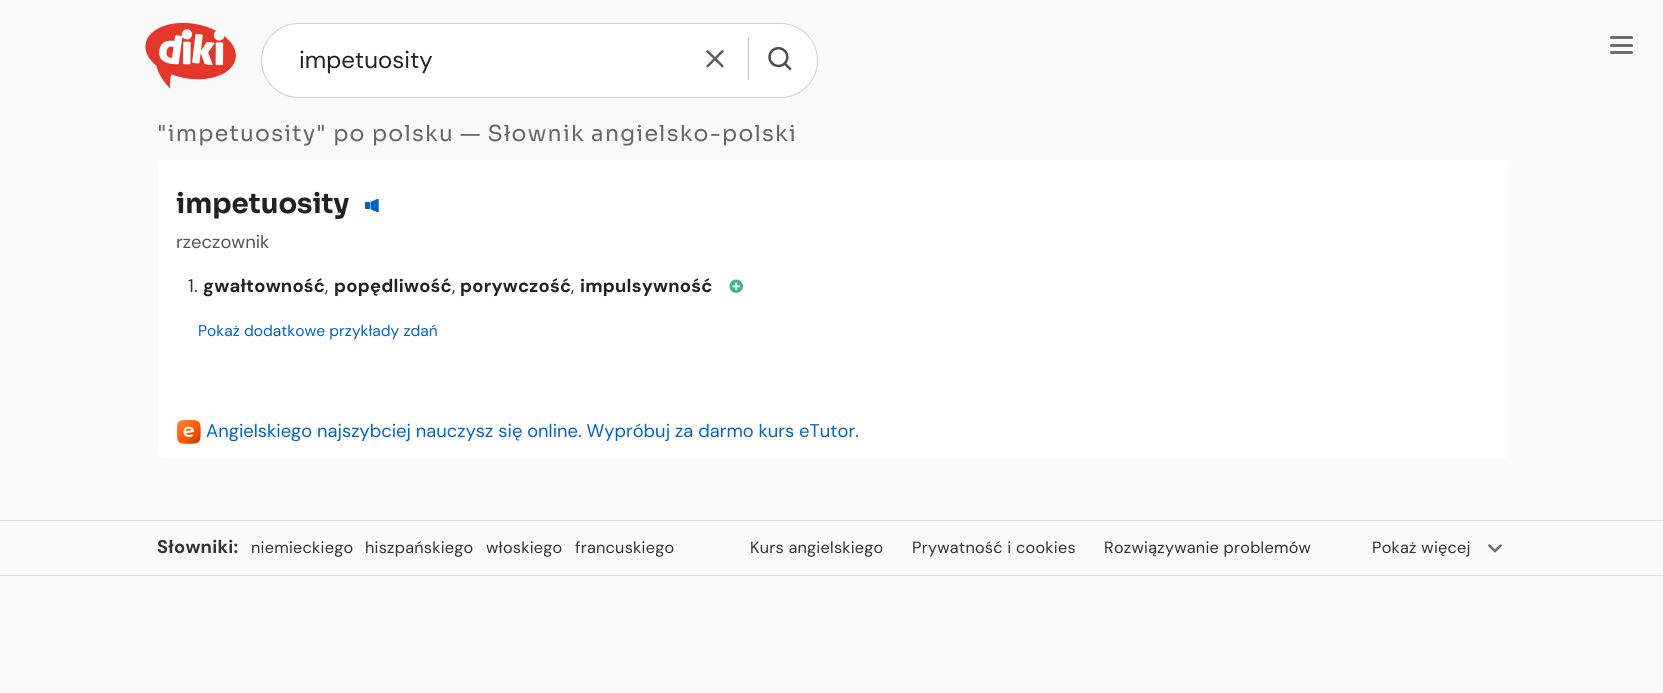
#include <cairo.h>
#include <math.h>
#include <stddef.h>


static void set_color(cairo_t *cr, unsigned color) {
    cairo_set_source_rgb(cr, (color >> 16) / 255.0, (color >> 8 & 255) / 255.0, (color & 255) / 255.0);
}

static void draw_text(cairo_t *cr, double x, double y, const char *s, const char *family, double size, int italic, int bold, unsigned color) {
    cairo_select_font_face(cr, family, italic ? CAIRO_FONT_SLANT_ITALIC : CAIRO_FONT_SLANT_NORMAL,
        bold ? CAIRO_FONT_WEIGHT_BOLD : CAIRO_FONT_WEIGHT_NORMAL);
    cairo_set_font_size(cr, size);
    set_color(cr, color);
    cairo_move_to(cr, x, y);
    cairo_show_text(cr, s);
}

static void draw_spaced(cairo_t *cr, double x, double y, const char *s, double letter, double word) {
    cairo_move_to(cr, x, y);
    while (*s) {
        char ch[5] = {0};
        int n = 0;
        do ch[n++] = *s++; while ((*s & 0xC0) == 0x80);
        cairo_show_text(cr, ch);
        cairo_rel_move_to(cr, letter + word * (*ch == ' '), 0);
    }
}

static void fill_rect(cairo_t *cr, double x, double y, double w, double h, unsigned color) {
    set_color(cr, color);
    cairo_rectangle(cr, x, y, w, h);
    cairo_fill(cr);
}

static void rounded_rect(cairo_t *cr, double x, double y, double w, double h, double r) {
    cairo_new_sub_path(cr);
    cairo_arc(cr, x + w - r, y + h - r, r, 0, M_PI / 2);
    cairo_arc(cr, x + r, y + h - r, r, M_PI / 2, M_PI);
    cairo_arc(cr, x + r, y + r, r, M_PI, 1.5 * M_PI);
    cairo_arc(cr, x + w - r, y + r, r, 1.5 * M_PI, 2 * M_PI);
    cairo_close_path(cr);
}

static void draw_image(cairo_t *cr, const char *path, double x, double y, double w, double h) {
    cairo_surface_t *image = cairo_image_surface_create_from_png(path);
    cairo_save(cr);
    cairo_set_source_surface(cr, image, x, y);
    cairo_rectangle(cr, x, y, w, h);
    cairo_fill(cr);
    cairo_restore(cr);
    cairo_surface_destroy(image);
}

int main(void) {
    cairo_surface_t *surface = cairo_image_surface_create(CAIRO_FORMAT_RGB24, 1663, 693);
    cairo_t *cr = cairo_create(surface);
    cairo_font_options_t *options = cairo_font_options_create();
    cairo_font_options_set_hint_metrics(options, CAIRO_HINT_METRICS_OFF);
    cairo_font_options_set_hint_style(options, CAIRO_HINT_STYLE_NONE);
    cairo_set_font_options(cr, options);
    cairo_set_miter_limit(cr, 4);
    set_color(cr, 0xFAFAFA);
    cairo_paint(cr);
    set_color(cr, 0x6D6D6D);
    rounded_rect(cr, 1610, 44, 23, 3, 1.5);
    cairo_fill(cr);
    rounded_rect(cr, 1610, 36, 23, 3, 1.5);
    cairo_fill(cr);
    rounded_rect(cr, 1610, 51, 23, 3, 1.5);
    cairo_fill(cr);
    draw_image(cr, "assets/img1.png", 145, 23, 91, 66);
    set_color(cr, 0xFFFFFF);
    rounded_rect(cr, 263, 24, 553, 72, 36);
    cairo_fill(cr);
    rounded_rect(cr, 261.5, 23.5, 556, 74, 37);
    set_color(cr, 0xD2D2D2);
    cairo_set_line_width(cr, 1);
    cairo_stroke(cr);
    draw_text(cr, 299, 68, "impetuosity", "DM Sans", 24, 0, 0, 0x222222);
    draw_image(cr, "assets/img2.png", 706, 49, 18, 19);
    fill_rect(cr, 748, 38, 1, 42, 0xC4C4C4);
    draw_image(cr, "assets/img3.png", 768, 46, 24, 25);
    cairo_select_font_face(cr, "Sora", CAIRO_FONT_SLANT_NORMAL, CAIRO_FONT_WEIGHT_NORMAL);
    cairo_set_font_size(cr, 22);
    set_color(cr, 0x666666);
    draw_spaced(cr, 157, 141, "\"impetuosity\" po polsku — Słownik angielsko-polski", 1.25, 0);
    set_color(cr, 0xFFFFFF);
    rounded_rect(cr, 158, 160, 1350, 298, 6);
    cairo_fill(cr);
    draw_text(cr, 176, 213, "impetuosity", "Sora", 27.5, 0, 1, 0x222222);
    draw_image(cr, "assets/img4.png", 365, 199, 14, 14);
    draw_text(cr, 176, 248, "rzeczownik", "DM Sans", 18.35, 0, 0, 0x555555);
    set_color(cr, 0x333333);
    draw_spaced(cr, 188, 292, "1.", 0.25, 0);
    cairo_select_font_face(cr, "DM Sans", CAIRO_FONT_SLANT_NORMAL, CAIRO_FONT_WEIGHT_BOLD);
    set_color(cr, 0x222222);
    draw_spaced(cr, 203, 292, "gwałtowność", 0.25, 0);
    cairo_select_font_face(cr, "DM Sans", CAIRO_FONT_SLANT_NORMAL, CAIRO_FONT_WEIGHT_NORMAL);
    set_color(cr, 0x333333);
    draw_spaced(cr, 325, 292, ",", 0.25, 0);
    cairo_select_font_face(cr, "DM Sans", CAIRO_FONT_SLANT_NORMAL, CAIRO_FONT_WEIGHT_BOLD);
    set_color(cr, 0x222222);
    draw_spaced(cr, 334, 292, "popędliwość", 0.25, 0);
    cairo_select_font_face(cr, "DM Sans", CAIRO_FONT_SLANT_NORMAL, CAIRO_FONT_WEIGHT_NORMAL);
    set_color(cr, 0x333333);
    draw_spaced(cr, 452, 292, ",", 0.25, 0);
    cairo_select_font_face(cr, "DM Sans", CAIRO_FONT_SLANT_NORMAL, CAIRO_FONT_WEIGHT_BOLD);
    set_color(cr, 0x222222);
    draw_spaced(cr, 460, 292, "porywczość", 0.25, 0);
    cairo_select_font_face(cr, "DM Sans", CAIRO_FONT_SLANT_NORMAL, CAIRO_FONT_WEIGHT_NORMAL);
    set_color(cr, 0x333333);
    draw_spaced(cr, 571, 292, ",", 0.25, 0);
    cairo_select_font_face(cr, "DM Sans", CAIRO_FONT_SLANT_NORMAL, CAIRO_FONT_WEIGHT_BOLD);
    set_color(cr, 0x222222);
    draw_spaced(cr, 580, 292, "impulsywność", 0.25, 0);
    draw_image(cr, "assets/img5.png", 729, 279, 14, 14);
    draw_text(cr, 198, 336, "Pokaż dodatkowe przykłady zdań", "DM Sans", 15.6, 0, 0, 0x0065C2);
    draw_image(cr, "assets/img6.png", 177, 420, 24, 24);
    draw_text(cr, 206, 437, "Angielskiego najszybciej nauczysz się online. Wypróbuj za darmo kurs eTutor.", "DM Sans", 18.35, 0, 0, 0x0065C2);
    fill_rect(cr, 0, 520, 1663, 1, 0xDDDDDD);
    fill_rect(cr, 0, 575, 1663, 1, 0xDDDDDD);
    cairo_select_font_face(cr, "DM Sans", CAIRO_FONT_SLANT_NORMAL, CAIRO_FONT_WEIGHT_BOLD);
    set_color(cr, 0x333333);
    draw_spaced(cr, 157, 553, "Słowniki:", 0.25, 0);
    cairo_select_font_face(cr, "DM Sans", CAIRO_FONT_SLANT_NORMAL, CAIRO_FONT_WEIGHT_NORMAL);
    cairo_set_font_size(cr, 16.25);
    draw_spaced(cr, 251, 553, "niemieckiego", 0.25, 0);
    draw_spaced(cr, 365, 553, "hiszpańskiego", 0.25, 0);
    draw_spaced(cr, 486, 553, "włoskiego", 0.25, 0);
    draw_spaced(cr, 575, 553, "francuskiego", 0.25, 0);
    draw_spaced(cr, 750, 553, "Kurs angielskiego", 0.25, 0);
    draw_spaced(cr, 912, 553, "Prywatność i cookies", 0.25, 0);
    draw_spaced(cr, 1104, 553, "Rozwiązywanie problemów", 0.25, 0);
    draw_spaced(cr, 1372, 553, "Pokaż więcej", 0.25, 0);
    draw_image(cr, "assets/img7.png", 1488, 544, 14, 9);
    cairo_surface_write_to_png(surface, "output.png");
    cairo_font_options_destroy(options);
    cairo_destroy(cr);
    cairo_surface_destroy(surface);
    return 0;
}
